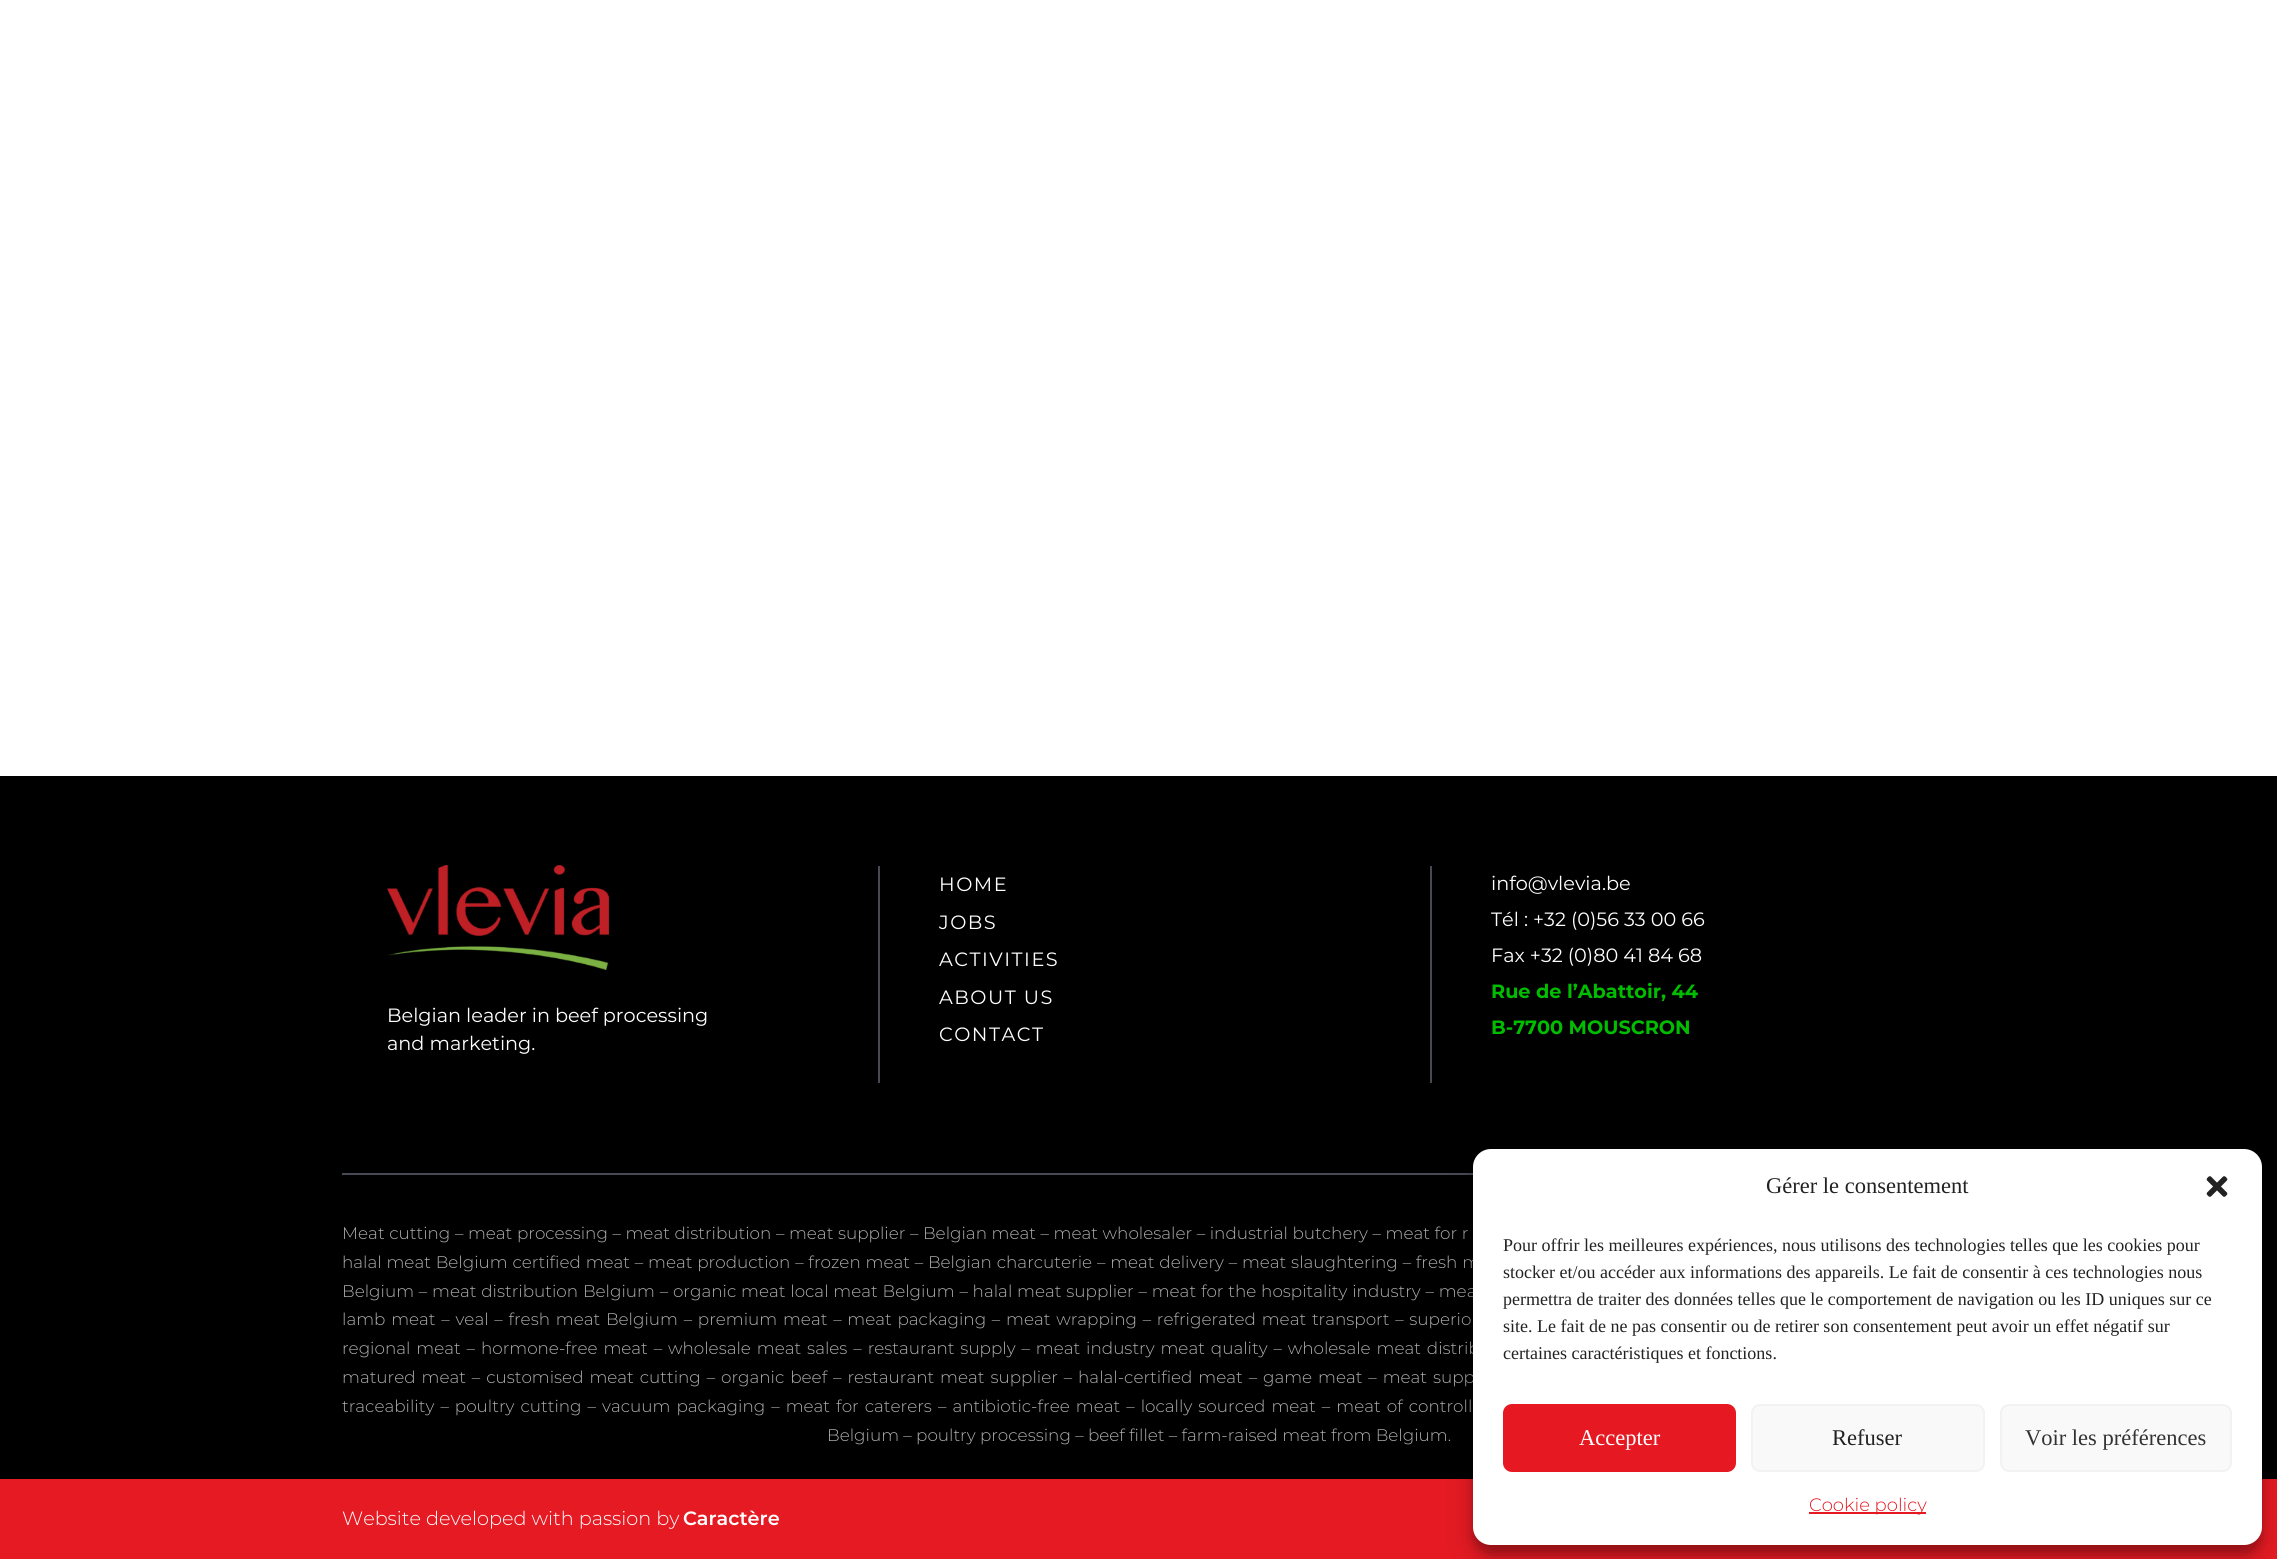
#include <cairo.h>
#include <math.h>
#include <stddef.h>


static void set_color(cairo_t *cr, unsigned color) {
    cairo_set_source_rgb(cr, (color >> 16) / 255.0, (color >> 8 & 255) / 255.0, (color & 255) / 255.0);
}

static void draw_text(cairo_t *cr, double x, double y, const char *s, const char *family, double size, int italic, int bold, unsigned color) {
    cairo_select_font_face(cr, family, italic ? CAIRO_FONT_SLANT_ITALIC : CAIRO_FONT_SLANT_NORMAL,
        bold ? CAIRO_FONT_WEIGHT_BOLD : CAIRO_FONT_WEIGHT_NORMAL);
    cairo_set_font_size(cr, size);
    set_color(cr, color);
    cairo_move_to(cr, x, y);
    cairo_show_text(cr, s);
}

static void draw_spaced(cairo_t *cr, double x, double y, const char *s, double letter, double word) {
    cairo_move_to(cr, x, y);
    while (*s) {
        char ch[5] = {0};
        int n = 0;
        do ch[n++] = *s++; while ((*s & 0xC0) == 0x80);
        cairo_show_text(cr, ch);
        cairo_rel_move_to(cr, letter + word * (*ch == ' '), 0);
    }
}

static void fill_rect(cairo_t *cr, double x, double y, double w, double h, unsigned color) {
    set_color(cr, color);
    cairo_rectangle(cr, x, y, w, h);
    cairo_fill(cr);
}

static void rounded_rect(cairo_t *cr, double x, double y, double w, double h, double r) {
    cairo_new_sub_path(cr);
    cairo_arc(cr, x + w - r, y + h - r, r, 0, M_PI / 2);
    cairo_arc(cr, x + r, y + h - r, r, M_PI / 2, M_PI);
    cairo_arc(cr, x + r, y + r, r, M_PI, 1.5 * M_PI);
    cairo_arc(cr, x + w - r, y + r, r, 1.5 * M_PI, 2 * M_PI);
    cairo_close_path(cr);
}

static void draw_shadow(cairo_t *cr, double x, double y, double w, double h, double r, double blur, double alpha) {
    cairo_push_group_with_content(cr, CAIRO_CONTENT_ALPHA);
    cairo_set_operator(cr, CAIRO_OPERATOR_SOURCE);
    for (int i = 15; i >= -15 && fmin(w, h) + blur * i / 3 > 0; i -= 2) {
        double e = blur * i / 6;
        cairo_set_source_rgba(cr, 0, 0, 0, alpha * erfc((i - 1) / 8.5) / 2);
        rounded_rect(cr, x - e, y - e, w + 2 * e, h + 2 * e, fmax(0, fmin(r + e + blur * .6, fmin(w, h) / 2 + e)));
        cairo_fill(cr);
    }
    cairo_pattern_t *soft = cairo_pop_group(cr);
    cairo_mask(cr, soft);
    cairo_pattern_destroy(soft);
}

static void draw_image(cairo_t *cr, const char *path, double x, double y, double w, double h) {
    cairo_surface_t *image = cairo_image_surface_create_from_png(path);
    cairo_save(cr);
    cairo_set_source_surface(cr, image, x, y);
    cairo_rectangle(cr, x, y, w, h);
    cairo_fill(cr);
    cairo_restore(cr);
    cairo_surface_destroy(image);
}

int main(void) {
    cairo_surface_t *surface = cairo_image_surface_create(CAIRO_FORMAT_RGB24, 2277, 1559);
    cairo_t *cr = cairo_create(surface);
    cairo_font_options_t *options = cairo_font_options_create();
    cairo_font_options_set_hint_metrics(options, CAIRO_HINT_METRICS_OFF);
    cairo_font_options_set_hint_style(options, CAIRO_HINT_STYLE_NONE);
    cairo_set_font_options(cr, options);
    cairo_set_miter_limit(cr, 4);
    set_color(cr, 0xFFFFFF);
    cairo_paint(cr);
    fill_rect(cr, 0, 776, 2277, 703, 0x000000);
    draw_image(cr, "assets/img1.png", 387, 865, 222, 105);
    draw_text(cr, 387, 1022, "Belgian leader in beef processing", "Montserrat", 19.25, 0, 0, 0xFFFFFF);
    draw_text(cr, 387, 1050, "and marketing.", "Montserrat", 19.25, 0, 0, 0xFFFFFF);
    fill_rect(cr, 878, 866, 2, 217, 0x474955);
    set_color(cr, 0xFFFFFF);
    draw_spaced(cr, 939, 891, "HOME", 1.5, 0);
    draw_spaced(cr, 939, 929, "JOBS", 1.5, 0);
    draw_spaced(cr, 939, 966, "ACTIVITIES", 1.5, 0);
    draw_spaced(cr, 939, 1004, "ABOUT US", 1.5, 0);
    draw_spaced(cr, 939, 1041, "CONTACT", 1.5, 0);
    fill_rect(cr, 1430, 866, 2, 217, 0x474955);
    draw_text(cr, 1491, 890, "info@vlevia.be", "Montserrat", 19.25, 0, 0, 0xFFFFFF);
    draw_text(cr, 1491, 926, "Tél : +32 (0)56 33 00 66", "Montserrat", 19.25, 0, 0, 0xFFFFFF);
    draw_text(cr, 1491, 962, "Fax +32 (0)80 41 84 68", "Montserrat", 19.25, 0, 0, 0xFFFFFF);
    draw_text(cr, 1491, 998, "Rue de l’Abattoir, 44", "Montserrat", 19.25, 0, 1, 0x00BD00);
    draw_text(cr, 1491, 1034, "B-7700 MOUSCRON", "Montserrat", 19.25, 0, 1, 0x00BD00);
    fill_rect(cr, 342, 1173, 1131, 2, 0x474955);
    cairo_select_font_face(cr, "Montserrat Light", CAIRO_FONT_SLANT_NORMAL, CAIRO_FONT_WEIGHT_NORMAL);
    cairo_set_font_size(cr, 16.8);
    set_color(cr, 0xB0B0B0);
    draw_spaced(cr, 342, 1239, "Meat cutting – meat processing – meat distribution – meat supplier – Belgian meat – meat wholesaler – industrial butchery – meat for r", 0, 0.3);
    draw_spaced(cr, 342, 1268, "halal meat Belgium certified meat – meat production – frozen meat – Belgian charcuterie – meat delivery – meat slaughtering – fresh m", 0, 0.5);
    draw_spaced(cr, 342, 1297, "Belgium – meat distribution Belgium – organic meat local meat Belgium – halal meat supplier – meat for the hospitality industry – mea", 0, 0.5);
    draw_spaced(cr, 342, 1325, "lamb meat – veal – fresh meat Belgium – premium meat – meat packaging – meat wrapping – refrigerated meat transport – superio", 0, 1.45);
    draw_spaced(cr, 342, 1354, "regional meat – hormone-free meat – wholesale meat sales – restaurant supply – meat industry meat quality – wholesale meat distrib", 0, 1.6);
    draw_spaced(cr, 342, 1383, "matured meat – customised meat cutting – organic beef – restaurant meat supplier – halal-certified meat – game meat – meat supp", 0, 1.6);
    draw_spaced(cr, 342, 1412, "traceability – poultry cutting – vacuum packaging – meat for caterers – antibiotic-free meat – locally sourced meat – meat of controll", 0, 1.75);
    draw_text(cr, 827, 1441, "Belgium – poultry processing – beef fillet – farm-raised meat from Belgium.", "Montserrat Light", 16.8, 0, 0, 0xB0B0B0);
    fill_rect(cr, 0, 1479, 2277, 80, 0xE61A23);
    draw_text(cr, 342, 1525, "Website developed with passion by", "Montserrat Light", 19.25, 0, 0, 0xFFFFFF);
    draw_text(cr, 683, 1525, "Caractère", "Montserrat SemiBold", 19.25, 0, 0, 0xFFFFFF);
    set_color(cr, 0x000000);
    draw_shadow(cr, 1473, 1158, 789, 396, 18, 4.5, 0.23);
    draw_shadow(cr, 1473, 1164, 789, 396, 18, 15, 0.19);
    set_color(cr, 0xFFFFFF);
    rounded_rect(cr, 1473, 1149, 789, 396, 18);
    cairo_fill(cr);
    draw_text(cr, 1766, 1193, "Gérer le consentement", "Liberation Serif", 22.5, 0, 0, 0x222222);
    draw_image(cr, "assets/img2.png", 2206, 1176, 22, 21);
    draw_text(cr, 1503, 1251, "Pour offrir les meilleures expériences, nous utilisons des technologies telles que les cookies pour", "Liberation Serif", 18, 0, 0, 0x222222);
    draw_text(cr, 1503, 1278, "stocker et/ou accéder aux informations des appareils. Le fait de consentir à ces technologies nous", "Liberation Serif", 18, 0, 0, 0x222222);
    draw_text(cr, 1503, 1305, "permettra de traiter des données telles que le comportement de navigation ou les ID uniques sur ce", "Liberation Serif", 18, 0, 0, 0x222222);
    draw_text(cr, 1503, 1332, "site. Le fait de ne pas consentir ou de retirer son consentement peut avoir un effet négatif sur", "Liberation Serif", 18, 0, 0, 0x222222);
    draw_text(cr, 1503, 1359, "certaines caractéristiques et fonctions.", "Liberation Serif", 18, 0, 0, 0x222222);
    set_color(cr, 0xE61923);
    rounded_rect(cr, 1504, 1405, 231, 66, 8);
    cairo_fill_preserve(cr);
    cairo_stroke(cr);
    draw_text(cr, 1579, 1445, "Accepter", "Liberation Serif", 22.5, 0, 0, 0xFFFFFF);
    set_color(cr, 0xF9F9F9);
    rounded_rect(cr, 1752, 1405, 232, 66, 8);
    cairo_fill_preserve(cr);
    set_color(cr, 0xF2F2F2);
    cairo_stroke(cr);
    draw_text(cr, 1832, 1445, "Refuser", "Liberation Serif", 22.5, 0, 0, 0x222222);
    set_color(cr, 0xF9F9F9);
    rounded_rect(cr, 2001, 1405, 230, 66, 8);
    cairo_fill_preserve(cr);
    set_color(cr, 0xF2F2F2);
    cairo_stroke(cr);
    draw_text(cr, 2025, 1445, "Voir les préférences", "Liberation Serif", 22.5, 0, 0, 0x333333);
    fill_rect(cr, 1809, 1512, 117, 2, 0xE61923);
    draw_text(cr, 1809, 1511, "Cookie policy", "Montserrat Light", 18, 0, 0, 0xE61923);
    cairo_surface_write_to_png(surface, "output.png");
    cairo_font_options_destroy(options);
    cairo_destroy(cr);
    cairo_surface_destroy(surface);
    return 0;
}
